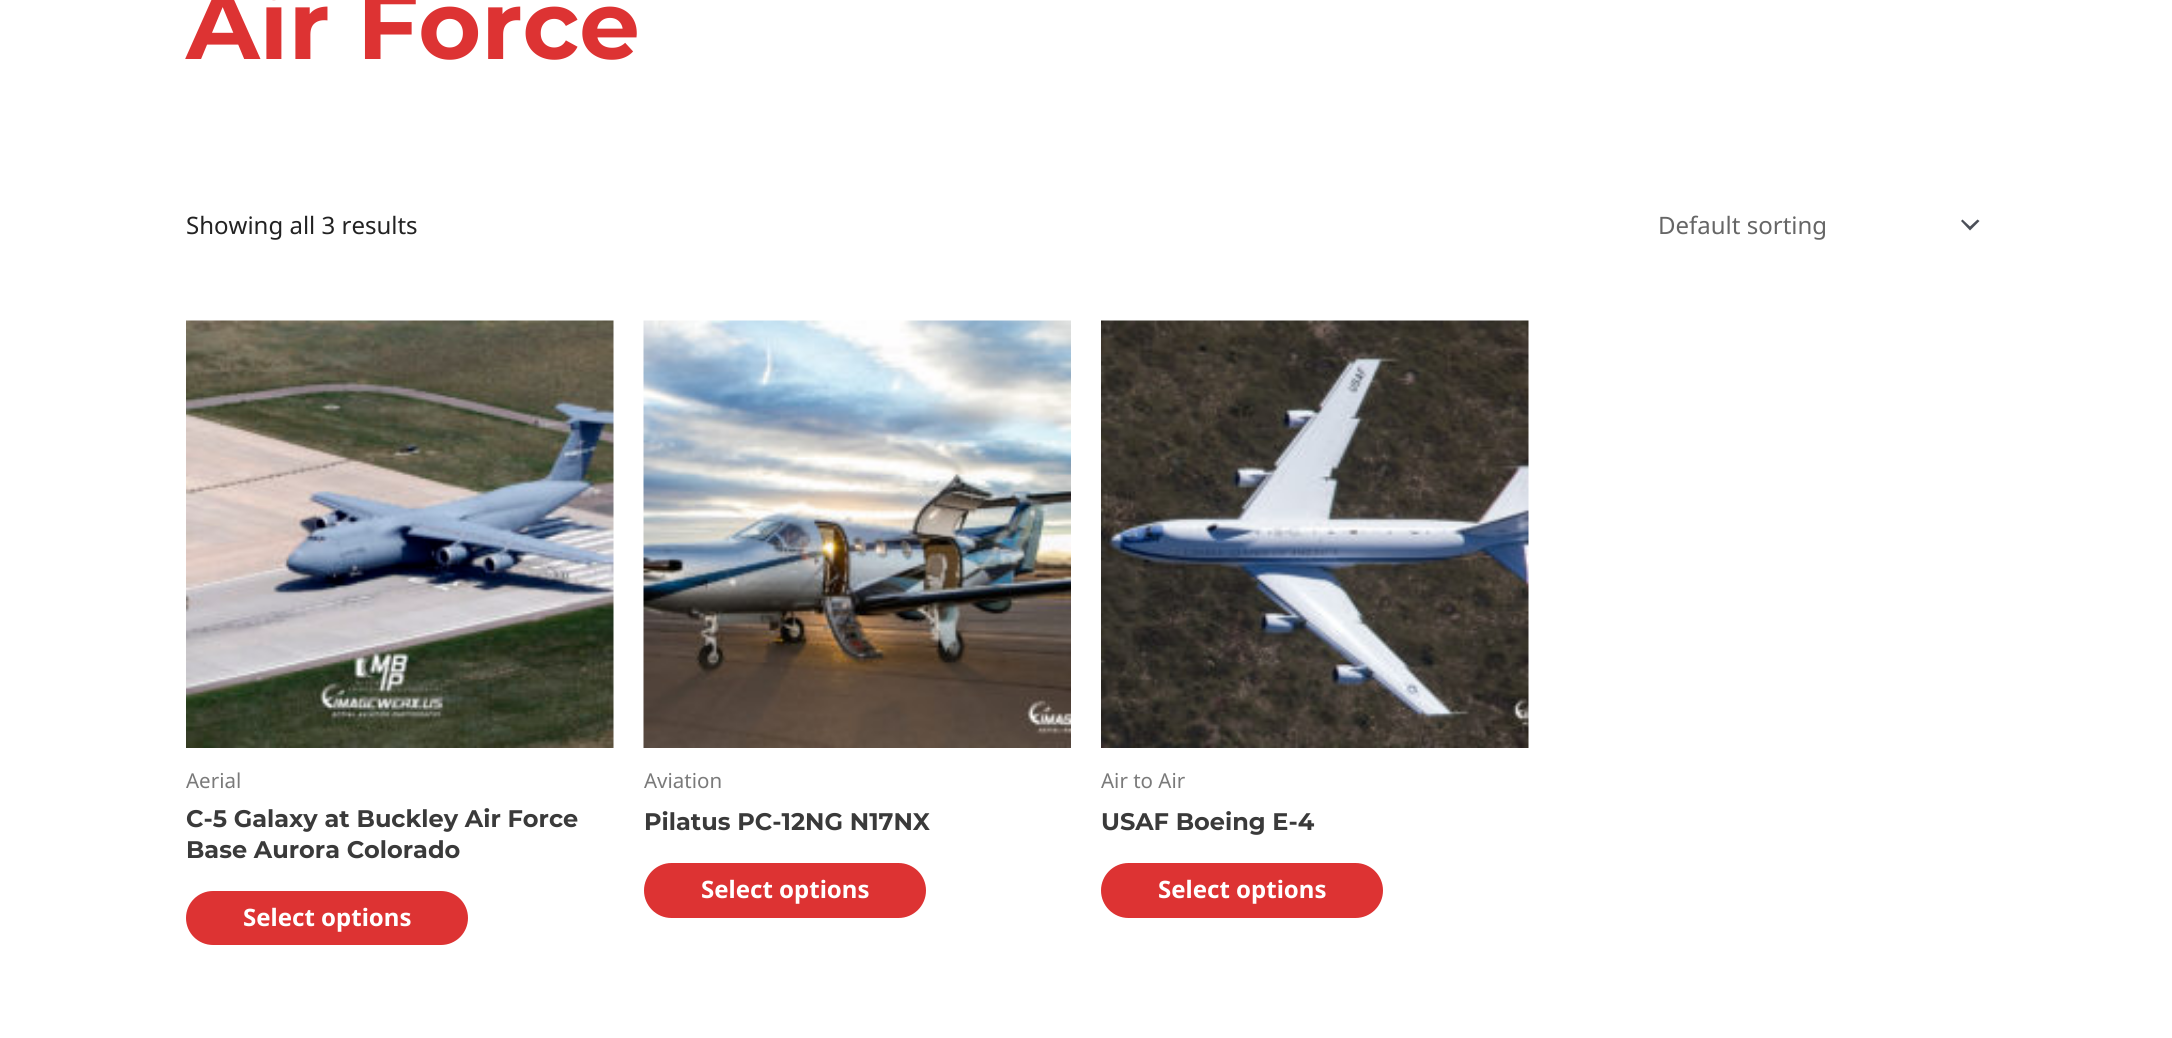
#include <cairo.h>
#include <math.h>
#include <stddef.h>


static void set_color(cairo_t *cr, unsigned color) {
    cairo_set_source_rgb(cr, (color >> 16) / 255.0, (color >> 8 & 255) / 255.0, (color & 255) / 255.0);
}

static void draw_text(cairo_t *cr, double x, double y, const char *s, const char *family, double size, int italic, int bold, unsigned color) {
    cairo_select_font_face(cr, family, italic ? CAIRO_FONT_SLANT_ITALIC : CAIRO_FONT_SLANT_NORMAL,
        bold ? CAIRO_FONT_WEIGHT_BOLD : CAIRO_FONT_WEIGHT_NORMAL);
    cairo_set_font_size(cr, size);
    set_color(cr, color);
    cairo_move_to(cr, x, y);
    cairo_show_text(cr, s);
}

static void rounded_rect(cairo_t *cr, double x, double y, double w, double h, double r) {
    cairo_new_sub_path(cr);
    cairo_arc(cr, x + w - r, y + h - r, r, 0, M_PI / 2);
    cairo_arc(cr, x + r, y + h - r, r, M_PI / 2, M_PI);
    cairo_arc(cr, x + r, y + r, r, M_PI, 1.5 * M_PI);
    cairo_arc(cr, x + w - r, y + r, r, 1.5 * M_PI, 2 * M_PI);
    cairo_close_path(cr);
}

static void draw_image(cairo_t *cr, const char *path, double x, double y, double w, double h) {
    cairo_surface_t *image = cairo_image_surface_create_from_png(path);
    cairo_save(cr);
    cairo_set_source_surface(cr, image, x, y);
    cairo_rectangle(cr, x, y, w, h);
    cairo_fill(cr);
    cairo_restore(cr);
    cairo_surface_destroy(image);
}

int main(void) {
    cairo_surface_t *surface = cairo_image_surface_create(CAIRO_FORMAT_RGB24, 2172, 1038);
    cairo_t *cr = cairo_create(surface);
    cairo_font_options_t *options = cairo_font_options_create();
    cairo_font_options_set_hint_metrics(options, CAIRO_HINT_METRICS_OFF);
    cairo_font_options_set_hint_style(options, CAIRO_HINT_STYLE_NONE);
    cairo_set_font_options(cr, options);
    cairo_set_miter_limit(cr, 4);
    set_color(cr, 0xFFFFFF);
    cairo_paint(cr);
    draw_text(cr, 186, 59, "Air Force", "Montserrat Thin", 96, 0, 0, 0xDD3333);
    draw_text(cr, 186, 234, "Showing all 3 results", "Noto Sans", 24, 0, 0, 0x222222);
    set_color(cr, 0x4B4F58);
    cairo_new_path(cr);
    cairo_move_to(cr, 1961, 221);
    cairo_line_to(cr, 1970, 230.5);
    cairo_line_to(cr, 1979.5, 221);
    cairo_line_to(cr, 1977.5, 219.5);
    cairo_line_to(cr, 1970, 226.5);
    cairo_line_to(cr, 1962.5, 219.5);
    cairo_close_path(cr);
    cairo_fill(cr);
    draw_text(cr, 1658, 234, "Default sorting", "Noto Sans", 24, 0, 0, 0x666666);
    draw_image(cr, "assets/img1.png", 186, 320, 428, 428);
    draw_text(cr, 186, 788, "Aerial", "Noto Sans", 20.5, 0, 0, 0x7A7A7A);
    draw_text(cr, 186, 827, "C-5 Galaxy at Buckley Air Force", "Montserrat Thin", 24, 0, 0, 0x3A3A3A);
    draw_text(cr, 186, 858, "Base Aurora Colorado", "Montserrat Thin", 24, 0, 0, 0x3A3A3A);
    set_color(cr, 0xDD3333);
    rounded_rect(cr, 186, 891, 282, 54, 27);
    cairo_fill(cr);
    draw_text(cr, 243, 926, "Select options", "Noto Sans", 24, 0, 1, 0xFFFFFF);
    draw_image(cr, "assets/img2.png", 643, 320, 428, 428);
    draw_text(cr, 644, 788, "Aviation", "Noto Sans", 20.5, 0, 0, 0x7A7A7A);
    draw_text(cr, 644, 830, "Pilatus PC-12NG N17NX", "Montserrat Thin", 24, 0, 0, 0x3A3A3A);
    set_color(cr, 0xDD3333);
    rounded_rect(cr, 644, 863, 282, 55, 27.5);
    cairo_fill(cr);
    draw_text(cr, 701, 898, "Select options", "Noto Sans", 24, 0, 1, 0xFFFFFF);
    draw_image(cr, "assets/img3.png", 1101, 320, 428, 428);
    draw_text(cr, 1101, 788, "Air to Air", "Noto Sans", 20.5, 0, 0, 0x7A7A7A);
    draw_text(cr, 1101, 830, "USAF Boeing E-4", "Montserrat Thin", 24, 0, 0, 0x3A3A3A);
    set_color(cr, 0xDD3333);
    rounded_rect(cr, 1101, 863, 282, 55, 27.5);
    cairo_fill(cr);
    draw_text(cr, 1158, 898, "Select options", "Noto Sans", 24, 0, 1, 0xFFFFFF);
    cairo_surface_write_to_png(surface, "output.png");
    cairo_font_options_destroy(options);
    cairo_destroy(cr);
    cairo_surface_destroy(surface);
    return 0;
}
